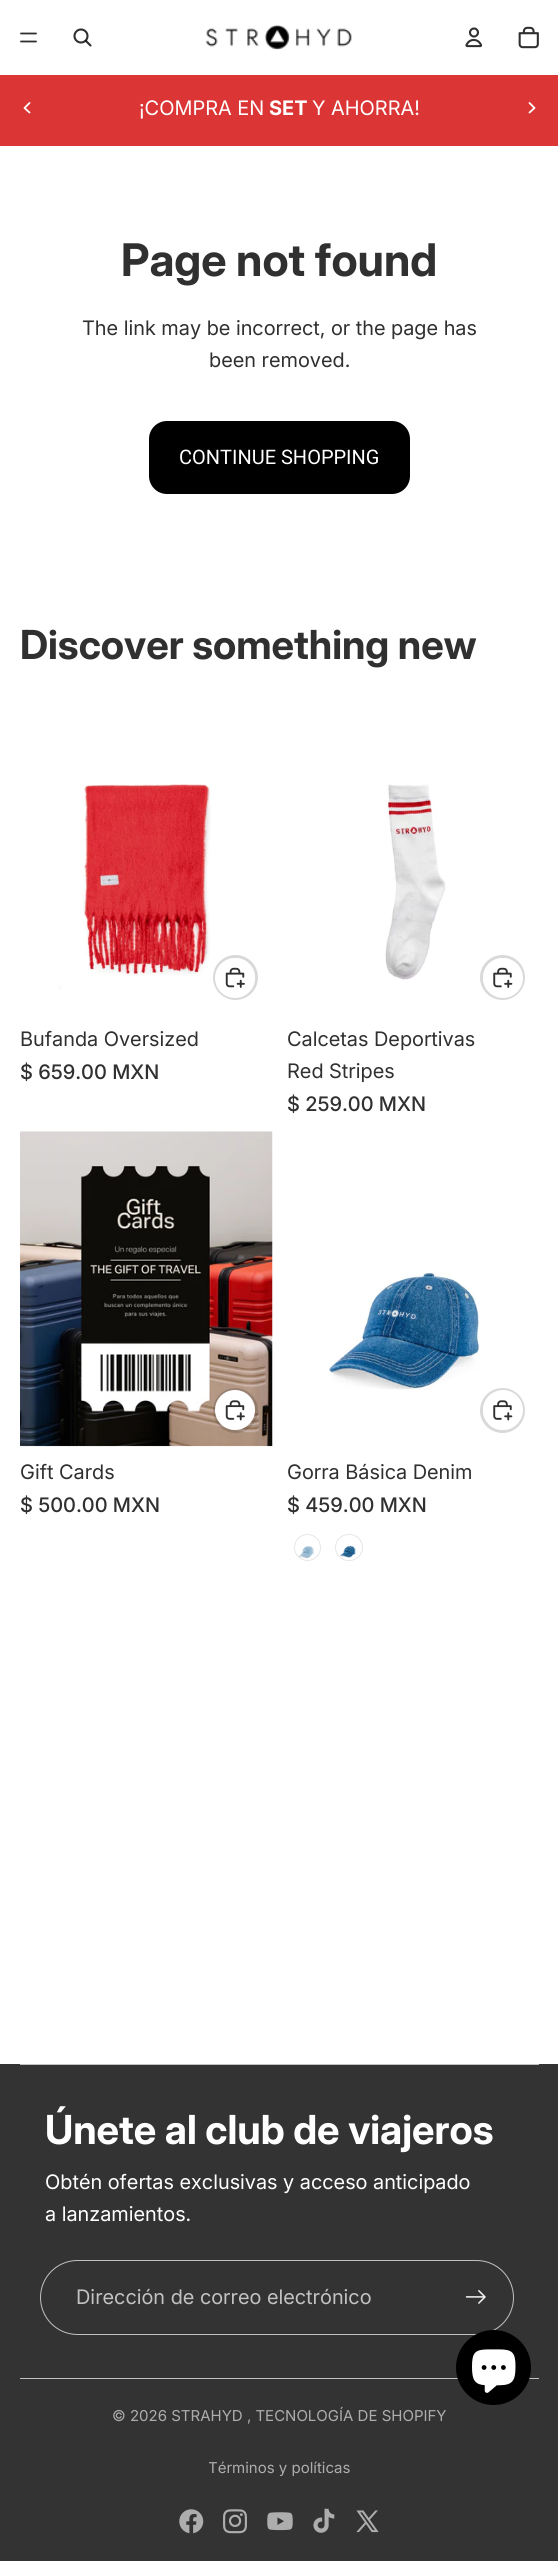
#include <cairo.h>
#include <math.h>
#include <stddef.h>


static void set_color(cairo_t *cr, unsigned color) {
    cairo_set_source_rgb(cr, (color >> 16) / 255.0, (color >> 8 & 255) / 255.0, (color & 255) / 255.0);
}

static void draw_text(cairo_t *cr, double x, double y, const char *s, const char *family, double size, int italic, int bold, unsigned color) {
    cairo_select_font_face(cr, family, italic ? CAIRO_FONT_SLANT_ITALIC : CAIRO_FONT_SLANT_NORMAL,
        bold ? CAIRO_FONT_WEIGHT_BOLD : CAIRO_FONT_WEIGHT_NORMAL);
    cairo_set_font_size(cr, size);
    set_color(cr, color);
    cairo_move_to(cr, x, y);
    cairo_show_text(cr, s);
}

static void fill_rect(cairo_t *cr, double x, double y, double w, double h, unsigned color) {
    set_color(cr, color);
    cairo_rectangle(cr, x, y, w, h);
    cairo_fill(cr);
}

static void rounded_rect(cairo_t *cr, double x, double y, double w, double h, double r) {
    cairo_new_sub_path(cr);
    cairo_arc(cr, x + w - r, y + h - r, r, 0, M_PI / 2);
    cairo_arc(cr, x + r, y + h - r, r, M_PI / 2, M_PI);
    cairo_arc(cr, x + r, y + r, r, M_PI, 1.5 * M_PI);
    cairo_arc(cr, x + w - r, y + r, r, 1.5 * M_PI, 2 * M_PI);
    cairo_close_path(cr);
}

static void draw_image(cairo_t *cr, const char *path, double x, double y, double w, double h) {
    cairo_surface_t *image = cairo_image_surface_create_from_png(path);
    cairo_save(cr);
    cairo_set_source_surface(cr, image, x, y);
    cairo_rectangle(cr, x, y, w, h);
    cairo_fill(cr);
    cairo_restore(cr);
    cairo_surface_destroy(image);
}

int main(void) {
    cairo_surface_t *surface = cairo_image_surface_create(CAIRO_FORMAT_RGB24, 558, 2561);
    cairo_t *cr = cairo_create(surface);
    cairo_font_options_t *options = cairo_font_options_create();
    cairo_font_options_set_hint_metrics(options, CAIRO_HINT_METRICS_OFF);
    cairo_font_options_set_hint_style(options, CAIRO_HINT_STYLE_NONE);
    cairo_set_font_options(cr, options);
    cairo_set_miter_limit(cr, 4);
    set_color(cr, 0xFFFFFF);
    cairo_paint(cr);
    cairo_new_path(cr);
    cairo_move_to(cr, 21, 33.5);
    cairo_line_to(cr, 36, 33.5);
    cairo_move_to(cr, 21, 41.5);
    cairo_line_to(cr, 36, 41.5);
    set_color(cr, 0x303030);
    cairo_set_line_width(cr, 1.8);
    cairo_set_line_cap(cr, CAIRO_LINE_CAP_ROUND);
    cairo_stroke(cr);
    cairo_arc(cr, 81, 36, 6.5, 0, 2 * M_PI);
    cairo_set_line_width(cr, 2.1);
    cairo_set_line_cap(cr, CAIRO_LINE_CAP_BUTT);
    cairo_stroke(cr);
    cairo_new_path(cr);
    cairo_move_to(cr, 86, 41);
    cairo_line_to(cr, 90.5, 45.5);
    cairo_set_source_rgba(cr, 0, 0, 0, 0.81);
    cairo_set_line_cap(cr, CAIRO_LINE_CAP_ROUND);
    cairo_set_line_join(cr, CAIRO_LINE_JOIN_ROUND);
    cairo_stroke(cr);
    draw_image(cr, "assets/img1.png", 206, 25, 146, 25);
    draw_image(cr, "assets/img2.png", 465, 27, 18, 21);
    draw_image(cr, "assets/img3.png", 518, 26, 21, 23);
    fill_rect(cr, 0, 75, 558, 71, 0xDB3535);
    draw_text(cr, 139, 115, "¡COMPRA EN", "Inter", 20, 0, 0, 0xFFFFFF);
    draw_text(cr, 269, 115, "SET", "Inter", 20, 0, 1, 0xFFFFFF);
    draw_text(cr, 312, 115, "Y AHORRA!", "Inter", 20, 0, 0, 0xFFFFFF);
    cairo_new_path(cr);
    cairo_move_to(cr, 29.5, 103);
    cairo_line_to(cr, 24.5, 108);
    cairo_line_to(cr, 29.5, 112.5);
    cairo_set_line_width(cr, 1.8);
    cairo_stroke(cr);
    cairo_new_path(cr);
    cairo_move_to(cr, 529.5, 103);
    cairo_line_to(cr, 534.5, 108);
    cairo_line_to(cr, 529.5, 112.5);
    cairo_stroke(cr);
    draw_text(cr, 121, 276, "Page not found", "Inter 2", 45, 0, 1, 0x303030);
    draw_text(cr, 82, 335, "The link may be incorrect, or the page has", "Inter", 20, 0, 0, 0x303030);
    draw_text(cr, 209, 367, "been removed.", "Inter", 20, 0, 0, 0x303030);
    set_color(cr, 0x000000);
    rounded_rect(cr, 149, 421, 261, 73, 18);
    cairo_fill(cr);
    draw_text(cr, 179, 464, "CONTINUE SHOPPING", "Roboto", 20, 0, 0, 0xFFFFFF);
    draw_text(cr, 20, 659, "Discover something new", "Inter 2", 40, 0, 1, 0x303030);
    draw_image(cr, "assets/img4.png", 59, 783, 152, 206);
    cairo_arc(cr, 235.5, 977.5, 21, 0, 2 * M_PI);
    set_color(cr, 0xD9D9D9);
    cairo_set_line_width(cr, 3);
    cairo_set_line_cap(cr, CAIRO_LINE_CAP_BUTT);
    cairo_set_line_join(cr, CAIRO_LINE_JOIN_MITER);
    cairo_stroke(cr);
    set_color(cr, 0xFFFFFF);
    cairo_arc(cr, 235, 978, 20, 0, 2 * M_PI);
    cairo_fill(cr);
    draw_image(cr, "assets/img5.png", 225, 967, 20, 21);
    cairo_new_path(cr);
    cairo_move_to(cr, 232, 978);
    cairo_line_to(cr, 234.5, 980);
    cairo_line_to(cr, 237.5, 975.5);
    cairo_set_line_width(cr, 1.4);
    cairo_set_line_cap(cr, CAIRO_LINE_CAP_ROUND);
    cairo_set_line_join(cr, CAIRO_LINE_JOIN_ROUND);
    cairo_stroke(cr);
    draw_text(cr, 20, 1046, "Bufanda Oversized", "Inter", 20, 0, 0, 0x303030);
    draw_text(cr, 20, 1079, "$ 659.00 MXN", "Inter Medium", 20, 0, 0, 0x303030);
    draw_image(cr, "assets/img6.png", 385, 784, 61, 196);
    cairo_arc(cr, 502.5, 977.5, 21, 0, 2 * M_PI);
    set_color(cr, 0xD9D9D9);
    cairo_set_line_width(cr, 3);
    cairo_set_line_cap(cr, CAIRO_LINE_CAP_BUTT);
    cairo_set_line_join(cr, CAIRO_LINE_JOIN_MITER);
    cairo_stroke(cr);
    set_color(cr, 0xFFFFFF);
    cairo_arc(cr, 503, 978, 20, 0, 2 * M_PI);
    cairo_fill(cr);
    draw_image(cr, "assets/img7.png", 493, 967, 20, 21);
    cairo_new_path(cr);
    cairo_move_to(cr, 499.5, 978);
    cairo_line_to(cr, 502, 980);
    cairo_line_to(cr, 505, 975.5);
    cairo_set_line_width(cr, 1.4);
    cairo_set_line_cap(cr, CAIRO_LINE_CAP_ROUND);
    cairo_set_line_join(cr, CAIRO_LINE_JOIN_ROUND);
    cairo_stroke(cr);
    draw_text(cr, 287, 1046, "Calcetas Deportivas", "Inter", 20, 0, 0, 0x303030);
    draw_text(cr, 287, 1078, "Red Stripes", "Inter", 20, 0, 0, 0x303030);
    draw_text(cr, 287, 1111, "$ 259.00 MXN", "Inter Medium", 20, 0, 0, 0x303030);
    draw_image(cr, "assets/img8.png", 20, 1131, 253, 316);
    cairo_arc(cr, 235.5, 1410.5, 21, 0, 2 * M_PI);
    cairo_set_source_rgba(cr, 0, 0, 0, 0.15);
    cairo_set_line_width(cr, 3);
    cairo_set_line_cap(cr, CAIRO_LINE_CAP_BUTT);
    cairo_set_line_join(cr, CAIRO_LINE_JOIN_MITER);
    cairo_stroke(cr);
    set_color(cr, 0xFFFFFF);
    cairo_arc(cr, 235, 1410, 20, 0, 2 * M_PI);
    cairo_fill(cr);
    draw_image(cr, "assets/img9.png", 225, 1400, 20, 21);
    draw_text(cr, 20, 1479, "Gift Cards", "Inter", 20, 0, 0, 0x303030);
    draw_text(cr, 20, 1512, "$ 500.00 MXN", "Inter Medium", 20, 0, 0, 0x303030);
    draw_image(cr, "assets/img10.png", 329, 1272, 150, 118);
    cairo_arc(cr, 502.5, 1410.5, 21, 0, 2 * M_PI);
    set_color(cr, 0xD9D9D9);
    cairo_stroke(cr);
    set_color(cr, 0xFFFFFF);
    cairo_arc(cr, 503, 1410, 20, 0, 2 * M_PI);
    cairo_fill(cr);
    draw_image(cr, "assets/img11.png", 493, 1400, 20, 21);
    draw_text(cr, 287, 1479, "Gorra Básica Denim", "Inter", 20, 0, 0, 0x303030);
    draw_text(cr, 287, 1512, "$ 459.00 MXN", "Inter Medium", 20, 0, 0, 0x303030);
    draw_image(cr, "assets/img12.png", 299, 1546, 15, 13);
    cairo_arc(cr, 307.5, 1547.5, 13, 0, 2 * M_PI);
    cairo_set_source_rgba(cr, 0, 0, 0, 0.1);
    cairo_set_line_width(cr, 1);
    cairo_stroke(cr);
    draw_image(cr, "assets/img13.png", 340, 1545, 16, 13);
    rounded_rect(cr, 335.5, 1534.5, 27, 26, 13);
    set_color(cr, 0xE6E6E6);
    cairo_stroke(cr);
    fill_rect(cr, 0, 2064, 558, 497, 0x333333);
    set_color(cr, 0xC0C0C0);
    cairo_new_path(cr);
    cairo_move_to(cr, 539, 2064);
    cairo_line_to(cr, 539, 2065);
    cairo_line_to(cr, 537.5, 2064);
    cairo_close_path(cr);
    cairo_fill(cr);
    cairo_set_source_rgba(cr, 1, 1, 1, 0.69);
    cairo_new_path(cr);
    cairo_move_to(cr, 539, 2065);
    cairo_line_to(cr, 20, 2065);
    cairo_line_to(cr, 20, 2064);
    cairo_line_to(cr, 538, 2064);
    cairo_close_path(cr);
    cairo_fill(cr);
    draw_text(cr, 45, 2144, "Únete al club de viajeros", "Inter 2", 40, 0, 1, 0xFFFFFF);
    draw_text(cr, 45, 2189, "Obtén ofertas exclusivas y acceso anticipado", "Inter", 20, 0, 0, 0xFFFFFF);
    draw_text(cr, 45, 2221, "a lanzamientos.", "Inter", 20, 0, 0, 0xFFFFFF);
    rounded_rect(cr, 40.5, 2260.5, 473, 74, 37);
    set_color(cr, 0xC0C0C0);
    cairo_stroke(cr);
    draw_text(cr, 76, 2304, "Dirección de correo electrónico", "Inter", 20, 0, 0, 0xC2C2C2);
    draw_image(cr, "assets/img14.png", 465, 2290, 21, 14);
    fill_rect(cr, 20, 2378, 519, 1, 0xC0C0C0);
    set_color(cr, 0x000000);
    cairo_arc(cr, 493.5, 2367.5, 37.5, 0, 2 * M_PI);
    cairo_fill(cr);
    draw_image(cr, "assets/img15.png", 472, 2349, 44, 44);
    draw_text(cr, 112, 2421, "© 2026 STRAHYD , TECNOLOGÍA DE SHOPIFY", "Inter 2", 15, 0, 0, 0xADADAD);
    cairo_save(cr);
    cairo_rectangle(cr, 209, 2458, 141, 18);
    cairo_clip(cr);
    draw_text(cr, 208, 2473, "Términos y políticas", "Inter 2", 15, 0, 0, 0xADADAD);
    cairo_restore(cr);
    draw_image(cr, "assets/img16.png", 179, 2509, 25, 25);
    draw_image(cr, "assets/img17.png", 223, 2509, 24, 25);
    draw_image(cr, "assets/img18.png", 267, 2512, 26, 19);
    draw_image(cr, "assets/img19.png", 313, 2508, 22, 25);
    draw_image(cr, "assets/img20.png", 356, 2510, 23, 23);
    cairo_surface_write_to_png(surface, "output.png");
    cairo_font_options_destroy(options);
    cairo_destroy(cr);
    cairo_surface_destroy(surface);
    return 0;
}
